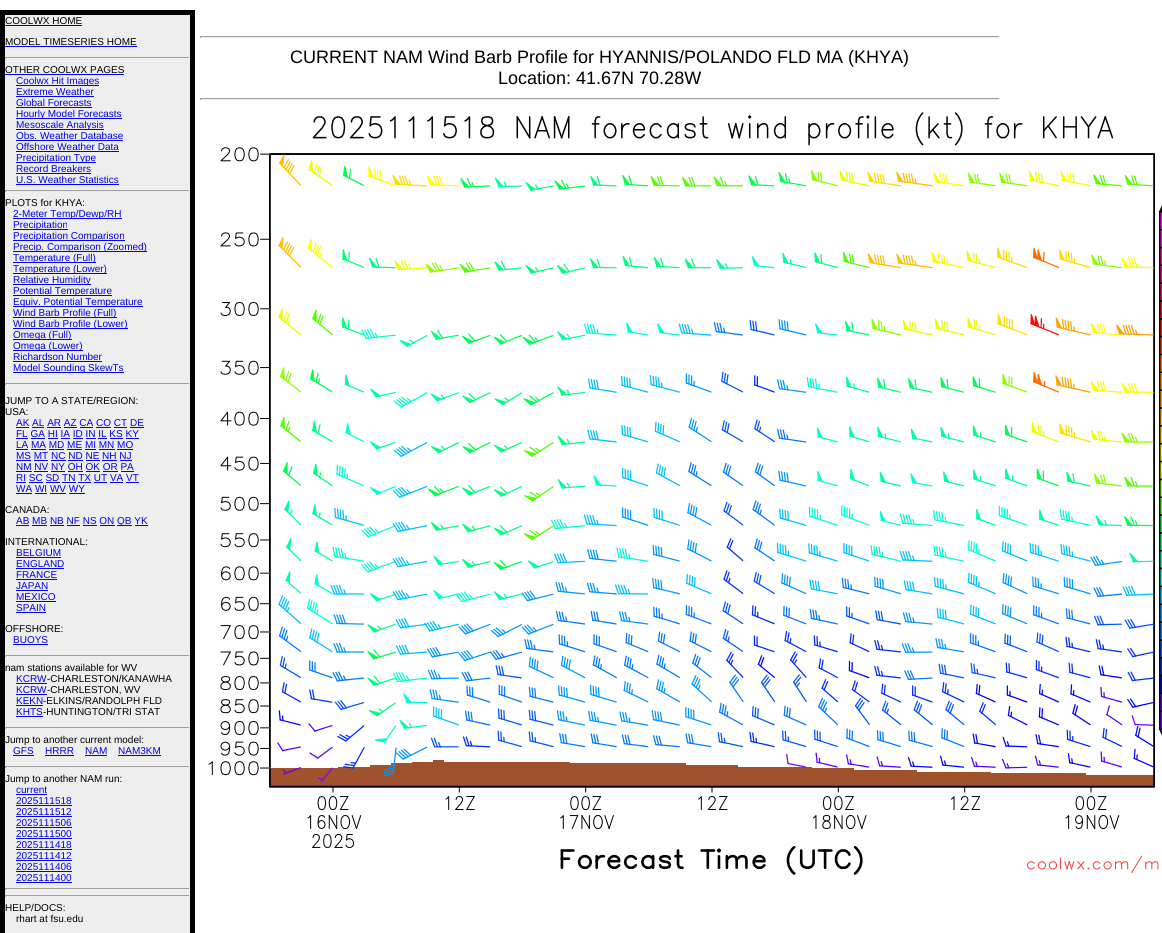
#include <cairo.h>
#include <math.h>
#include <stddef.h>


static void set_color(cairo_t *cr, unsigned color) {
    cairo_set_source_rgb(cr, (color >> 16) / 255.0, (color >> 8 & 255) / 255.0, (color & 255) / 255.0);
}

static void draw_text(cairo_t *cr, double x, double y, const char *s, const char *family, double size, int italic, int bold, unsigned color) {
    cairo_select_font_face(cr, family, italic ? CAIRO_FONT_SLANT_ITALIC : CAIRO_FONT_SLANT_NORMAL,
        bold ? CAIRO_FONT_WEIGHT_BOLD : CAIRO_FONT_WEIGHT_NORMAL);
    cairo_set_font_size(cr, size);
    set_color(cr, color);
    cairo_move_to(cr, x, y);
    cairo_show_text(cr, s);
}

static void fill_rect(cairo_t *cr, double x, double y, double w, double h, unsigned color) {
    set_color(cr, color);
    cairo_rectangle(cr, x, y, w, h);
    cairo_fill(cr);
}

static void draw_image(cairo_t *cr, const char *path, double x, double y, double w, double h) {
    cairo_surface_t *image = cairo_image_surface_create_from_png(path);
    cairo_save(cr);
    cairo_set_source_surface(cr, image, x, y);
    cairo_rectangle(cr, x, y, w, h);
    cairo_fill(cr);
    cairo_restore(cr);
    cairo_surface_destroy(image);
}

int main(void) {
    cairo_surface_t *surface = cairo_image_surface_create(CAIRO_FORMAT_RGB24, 1162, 933);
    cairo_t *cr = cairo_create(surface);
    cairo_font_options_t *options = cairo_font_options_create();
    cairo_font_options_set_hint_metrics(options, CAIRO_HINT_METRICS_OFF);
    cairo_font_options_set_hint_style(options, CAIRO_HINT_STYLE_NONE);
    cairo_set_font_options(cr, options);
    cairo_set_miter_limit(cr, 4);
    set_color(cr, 0xFFFFFF);
    cairo_paint(cr);
    set_color(cr, 0xEEEEEE);
    cairo_rectangle(cr, 2.5, 12.5, 190, 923);
    cairo_fill_preserve(cr);
    set_color(cr, 0x000000);
    cairo_set_line_width(cr, 5);
    cairo_stroke(cr);
    draw_text(cr, 5, 24, "COOLWX HOME", "Liberation Sans", 10, 0, 0, 0x000000);
    fill_rect(cr, 5, 25, 77, 1, 0x0000EE);
    draw_text(cr, 5, 45, "MODEL TIMESERIES HOME", "Liberation Sans", 10, 0, 0, 0x000000);
    fill_rect(cr, 5, 46, 132, 1, 0x0000EE);
    fill_rect(cr, 5, 57, 185, 1, 0x9F9F9F);
    fill_rect(cr, 189, 57, 1, 2, 0xEEEEEE);
    fill_rect(cr, 5, 57, 1, 2, 0x9F9F9F);
    draw_text(cr, 5, 73, "OTHER COOLWX PAGES", "Liberation Sans", 10, 0, 0, 0x000000);
    fill_rect(cr, 5, 74, 119, 1, 0x0000EE);
    fill_rect(cr, 16, 85, 83, 1, 0x0000EE);
    draw_text(cr, 16, 84, "Coolwx Hit Images", "Liberation Sans", 10, 0, 0, 0x0000EE);
    draw_text(cr, 16, 95, "Extreme Weather", "Liberation Sans", 10, 0, 0, 0x0000EE);
    fill_rect(cr, 16, 96, 78, 1, 0x0000EE);
    draw_text(cr, 16, 106, "Global Forecasts", "Liberation Sans", 10, 0, 0, 0x0000EE);
    fill_rect(cr, 16, 107, 76, 1, 0x0000EE);
    fill_rect(cr, 16, 118, 106, 1, 0x0000EE);
    draw_text(cr, 16, 117, "Hourly Model Forecasts", "Liberation Sans", 10, 0, 0, 0x0000EE);
    fill_rect(cr, 16, 129, 88, 1, 0x0000EE);
    draw_text(cr, 16, 128, "Mesoscale Analysis", "Liberation Sans", 10, 0, 0, 0x0000EE);
    draw_text(cr, 16, 139, "Obs. Weather Database", "Liberation Sans", 10, 0, 0, 0x0000EE);
    fill_rect(cr, 16, 140, 107, 1, 0x0000EE);
    draw_text(cr, 16, 150, "Offshore Weather Data", "Liberation Sans", 10, 0, 0, 0x0000EE);
    fill_rect(cr, 16, 151, 103, 1, 0x0000EE);
    fill_rect(cr, 16, 162, 80, 1, 0x0000EE);
    draw_text(cr, 16, 161, "Precipitation Type", "Liberation Sans", 10, 0, 0, 0x0000EE);
    draw_text(cr, 16, 172, "Record Breakers", "Liberation Sans", 10, 0, 0, 0x0000EE);
    fill_rect(cr, 16, 173, 75, 1, 0x0000EE);
    draw_text(cr, 16, 183, "U.S. Weather Statistics", "Liberation Sans", 10, 0, 0, 0x0000EE);
    fill_rect(cr, 16, 184, 103, 1, 0x0000EE);
    fill_rect(cr, 5, 190, 185, 1, 0x9F9F9F);
    fill_rect(cr, 189, 190, 1, 2, 0xEEEEEE);
    fill_rect(cr, 5, 190, 1, 2, 0x9F9F9F);
    draw_text(cr, 5, 206, "PLOTS for KHYA:", "Liberation Sans", 10, 0, 0, 0x000000);
    fill_rect(cr, 13, 218, 109, 1, 0x0000EE);
    draw_text(cr, 13, 217, "2-Meter Temp/Dewp/RH", "Liberation Sans", 10, 0, 0, 0x0000EE);
    fill_rect(cr, 13, 229, 55, 1, 0x0000EE);
    draw_text(cr, 13, 228, "Precipitation", "Liberation Sans", 10, 0, 0, 0x0000EE);
    fill_rect(cr, 13, 240, 112, 1, 0x0000EE);
    draw_text(cr, 13, 239, "Precipitation Comparison", "Liberation Sans", 10, 0, 0, 0x0000EE);
    fill_rect(cr, 13, 251, 134, 1, 0x0000EE);
    draw_text(cr, 13, 250, "Precip. Comparison (Zoomed)", "Liberation Sans", 10, 0, 0, 0x0000EE);
    fill_rect(cr, 13, 262, 83, 1, 0x0000EE);
    draw_text(cr, 13, 261, "Temperature (Full)", "Liberation Sans", 10, 0, 0, 0x0000EE);
    fill_rect(cr, 13, 273, 94, 1, 0x0000EE);
    draw_text(cr, 13, 272, "Temperature (Lower)", "Liberation Sans", 10, 0, 0, 0x0000EE);
    fill_rect(cr, 13, 284, 78, 1, 0x0000EE);
    draw_text(cr, 13, 283, "Relative Humidity", "Liberation Sans", 10, 0, 0, 0x0000EE);
    fill_rect(cr, 13, 295, 99, 1, 0x0000EE);
    draw_text(cr, 13, 294, "Potential Temperature", "Liberation Sans", 10, 0, 0, 0x0000EE);
    fill_rect(cr, 13, 306, 130, 1, 0x0000EE);
    draw_text(cr, 13, 305, "Equiv. Potential Temperature", "Liberation Sans", 10, 0, 0, 0x0000EE);
    fill_rect(cr, 13, 317, 104, 1, 0x0000EE);
    draw_text(cr, 13, 316, "Wind Barb Profile (Full)", "Liberation Sans", 10, 0, 0, 0x0000EE);
    fill_rect(cr, 13, 328, 115, 1, 0x0000EE);
    draw_text(cr, 13, 327, "Wind Barb Profile (Lower)", "Liberation Sans", 10, 0, 0, 0x0000EE);
    fill_rect(cr, 13, 339, 59, 1, 0x0000EE);
    draw_text(cr, 13, 338, "Omega (Full)", "Liberation Sans", 10, 0, 0, 0x0000EE);
    fill_rect(cr, 13, 350, 70, 1, 0x0000EE);
    draw_text(cr, 13, 349, "Omega (Lower)", "Liberation Sans", 10, 0, 0, 0x0000EE);
    draw_text(cr, 13, 360, "Richardson Number", "Liberation Sans", 10, 0, 0, 0x0000EE);
    fill_rect(cr, 13, 361, 89, 1, 0x0000EE);
    fill_rect(cr, 13, 372, 111, 1, 0x0000EE);
    draw_text(cr, 13, 371, "Model Sounding SkewTs", "Liberation Sans", 10, 0, 0, 0x0000EE);
    fill_rect(cr, 5, 383, 185, 1, 0x9F9F9F);
    fill_rect(cr, 189, 383, 1, 2, 0xEEEEEE);
    fill_rect(cr, 5, 383, 1, 2, 0x9F9F9F);
    draw_text(cr, 5, 404, "JUMP TO A STATE/REGION:", "Liberation Sans", 10, 0, 0, 0x000000);
    draw_text(cr, 5, 415, "USA:", "Liberation Sans", 10, 0, 0, 0x000000);
    draw_text(cr, 16, 426, "AK AL AR AZ CA CO CT DE", "Liberation Sans", 10, 0, 0, 0x0000EE);
    fill_rect(cr, 16, 427, 13, 1, 0x0000EE);
    fill_rect(cr, 32, 427, 12, 1, 0x0000EE);
    fill_rect(cr, 47, 427, 14, 1, 0x0000EE);
    fill_rect(cr, 64, 427, 13, 1, 0x0000EE);
    fill_rect(cr, 80, 427, 13, 1, 0x0000EE);
    fill_rect(cr, 96, 427, 15, 1, 0x0000EE);
    fill_rect(cr, 114, 427, 13, 1, 0x0000EE);
    fill_rect(cr, 130, 427, 14, 1, 0x0000EE);
    draw_text(cr, 16, 437, "FL GA HI IA ID IN IL KS KY", "Liberation Sans", 10, 0, 0, 0x0000EE);
    fill_rect(cr, 16, 438, 12, 1, 0x0000EE);
    fill_rect(cr, 31, 438, 14, 1, 0x0000EE);
    fill_rect(cr, 48, 438, 10, 1, 0x0000EE);
    fill_rect(cr, 61, 438, 9, 1, 0x0000EE);
    fill_rect(cr, 73, 438, 10, 1, 0x0000EE);
    fill_rect(cr, 86, 438, 10, 1, 0x0000EE);
    fill_rect(cr, 98, 438, 9, 1, 0x0000EE);
    fill_rect(cr, 110, 438, 13, 1, 0x0000EE);
    fill_rect(cr, 126, 438, 13, 1, 0x0000EE);
    draw_text(cr, 16, 448, "LA MA MD ME MI MN MO", "Liberation Sans", 10, 0, 0, 0x0000EE);
    fill_rect(cr, 16, 449, 12, 1, 0x0000EE);
    fill_rect(cr, 31, 449, 15, 1, 0x0000EE);
    fill_rect(cr, 49, 449, 15, 1, 0x0000EE);
    fill_rect(cr, 67, 449, 15, 1, 0x0000EE);
    fill_rect(cr, 85, 449, 11, 1, 0x0000EE);
    fill_rect(cr, 99, 449, 16, 1, 0x0000EE);
    fill_rect(cr, 117, 449, 16, 1, 0x0000EE);
    draw_text(cr, 16, 459, "MS MT NC ND NE NH NJ", "Liberation Sans", 10, 0, 0, 0x0000EE);
    fill_rect(cr, 16, 460, 15, 1, 0x0000EE);
    fill_rect(cr, 34, 460, 14, 1, 0x0000EE);
    fill_rect(cr, 51, 460, 15, 1, 0x0000EE);
    fill_rect(cr, 68, 460, 15, 1, 0x0000EE);
    fill_rect(cr, 86, 460, 14, 1, 0x0000EE);
    fill_rect(cr, 102, 460, 15, 1, 0x0000EE);
    fill_rect(cr, 120, 460, 12, 1, 0x0000EE);
    draw_text(cr, 16, 470, "NM NV NY OH OK OR PA", "Liberation Sans", 10, 0, 0, 0x0000EE);
    fill_rect(cr, 16, 471, 16, 1, 0x0000EE);
    fill_rect(cr, 34, 471, 14, 1, 0x0000EE);
    fill_rect(cr, 51, 471, 14, 1, 0x0000EE);
    fill_rect(cr, 68, 471, 15, 1, 0x0000EE);
    fill_rect(cr, 86, 471, 14, 1, 0x0000EE);
    fill_rect(cr, 103, 471, 15, 1, 0x0000EE);
    fill_rect(cr, 121, 471, 13, 1, 0x0000EE);
    draw_text(cr, 16, 481, "RI SC SD TN TX UT VA VT", "Liberation Sans", 10, 0, 0, 0x0000EE);
    fill_rect(cr, 16, 482, 10, 1, 0x0000EE);
    fill_rect(cr, 29, 482, 14, 1, 0x0000EE);
    fill_rect(cr, 46, 482, 14, 1, 0x0000EE);
    fill_rect(cr, 62, 482, 14, 1, 0x0000EE);
    fill_rect(cr, 78, 482, 13, 1, 0x0000EE);
    fill_rect(cr, 94, 482, 13, 1, 0x0000EE);
    fill_rect(cr, 110, 482, 13, 1, 0x0000EE);
    fill_rect(cr, 126, 482, 13, 1, 0x0000EE);
    draw_text(cr, 16, 492, "WA WI WV WY", "Liberation Sans", 10, 0, 0, 0x0000EE);
    fill_rect(cr, 16, 493, 16, 1, 0x0000EE);
    fill_rect(cr, 35, 493, 12, 1, 0x0000EE);
    fill_rect(cr, 50, 493, 16, 1, 0x0000EE);
    fill_rect(cr, 69, 493, 16, 1, 0x0000EE);
    draw_text(cr, 5, 513, "CANADA:", "Liberation Sans", 10, 0, 0, 0x000000);
    draw_text(cr, 16, 524, "AB MB NB NF NS ON", "Liberation Sans", 10, 0, 0, 0x0000EE);
    fill_rect(cr, 16, 525, 13, 1, 0x0000EE);
    fill_rect(cr, 117, 525, 15, 1, 0x0000EE);
    draw_text(cr, 117, 524, "QB YK", "Liberation Sans", 10, 0, 0, 0x0000EE);
    fill_rect(cr, 32, 525, 15, 1, 0x0000EE);
    fill_rect(cr, 50, 525, 14, 1, 0x0000EE);
    fill_rect(cr, 67, 525, 13, 1, 0x0000EE);
    fill_rect(cr, 83, 525, 14, 1, 0x0000EE);
    fill_rect(cr, 100, 525, 15, 1, 0x0000EE);
    fill_rect(cr, 135, 525, 13, 1, 0x0000EE);
    draw_text(cr, 5, 545, "INTERNATIONAL:", "Liberation Sans", 10, 0, 0, 0x000000);
    draw_text(cr, 16, 556, "BELGIUM", "Liberation Sans", 10, 0, 0, 0x0000EE);
    fill_rect(cr, 16, 557, 45, 1, 0x0000EE);
    draw_text(cr, 16, 567, "ENGLAND", "Liberation Sans", 10, 0, 0, 0x0000EE);
    fill_rect(cr, 16, 568, 48, 1, 0x0000EE);
    draw_text(cr, 16, 578, "FRANCE", "Liberation Sans", 10, 0, 0, 0x0000EE);
    fill_rect(cr, 16, 579, 41, 1, 0x0000EE);
    draw_text(cr, 16, 589, "JAPAN", "Liberation Sans", 10, 0, 0, 0x0000EE);
    fill_rect(cr, 16, 590, 32, 1, 0x0000EE);
    draw_text(cr, 16, 600, "MEXICO", "Liberation Sans", 10, 0, 0, 0x0000EE);
    fill_rect(cr, 16, 601, 40, 1, 0x0000EE);
    draw_text(cr, 16, 611, "SPAIN", "Liberation Sans", 10, 0, 0, 0x0000EE);
    fill_rect(cr, 16, 612, 30, 1, 0x0000EE);
    draw_text(cr, 5, 632, "OFFSHORE:", "Liberation Sans", 10, 0, 0, 0x000000);
    draw_text(cr, 13, 643, "BUOYS", "Liberation Sans", 10, 0, 0, 0x0000EE);
    fill_rect(cr, 13, 644, 35, 1, 0x0000EE);
    fill_rect(cr, 5, 655, 185, 1, 0x9F9F9F);
    fill_rect(cr, 189, 655, 1, 2, 0xEEEEEE);
    fill_rect(cr, 5, 655, 1, 2, 0x9F9F9F);
    draw_text(cr, 5, 671, "nam stations available for WV", "Liberation Sans", 10, 0, 0, 0x000000);
    draw_text(cr, 16, 682, "KCRW", "Liberation Sans", 10, 0, 0, 0x0000EE);
    fill_rect(cr, 16, 683, 31, 1, 0x0000EE);
    draw_text(cr, 47, 682, "-CHARLESTON/KANAWHA", "Liberation Sans", 10, 0, 0, 0x000000);
    draw_text(cr, 16, 693, "KCRW", "Liberation Sans", 10, 0, 0, 0x0000EE);
    fill_rect(cr, 16, 694, 31, 1, 0x0000EE);
    draw_text(cr, 47, 693, "-CHARLESTON, WV", "Liberation Sans", 10, 0, 0, 0x000000);
    draw_text(cr, 16, 704, "KEKN", "Liberation Sans", 10, 0, 0, 0x0000EE);
    fill_rect(cr, 16, 705, 27, 1, 0x0000EE);
    draw_text(cr, 43, 704, "-ELKINS/RANDOLPH FLD", "Liberation Sans", 10, 0, 0, 0x000000);
    draw_text(cr, 16, 715, "KHTS", "Liberation Sans", 10, 0, 0, 0x0000EE);
    fill_rect(cr, 16, 716, 27, 1, 0x0000EE);
    draw_text(cr, 43, 715, "-HUNTINGTON/TRI STAT", "Liberation Sans", 10, 0, 0, 0x000000);
    fill_rect(cr, 5, 727, 185, 1, 0x9F9F9F);
    fill_rect(cr, 189, 727, 1, 2, 0xEEEEEE);
    fill_rect(cr, 5, 727, 1, 2, 0x9F9F9F);
    draw_text(cr, 5, 743, "Jump to another current model:", "Liberation Sans", 10, 0, 0, 0x000000);
    draw_text(cr, 13, 754, "GFS", "Liberation Sans", 10, 0, 0, 0x0000EE);
    fill_rect(cr, 13, 755, 21, 1, 0x0000EE);
    draw_text(cr, 45, 754, "HRRR", "Liberation Sans", 10, 0, 0, 0x0000EE);
    fill_rect(cr, 45, 755, 29, 1, 0x0000EE);
    draw_text(cr, 85, 754, "NAM", "Liberation Sans", 10, 0, 0, 0x0000EE);
    fill_rect(cr, 85, 755, 22, 1, 0x0000EE);
    draw_text(cr, 118, 754, "NAM3KM", "Liberation Sans", 10, 0, 0, 0x0000EE);
    fill_rect(cr, 118, 755, 43, 1, 0x0000EE);
    fill_rect(cr, 5, 766, 185, 1, 0x9F9F9F);
    fill_rect(cr, 189, 766, 1, 2, 0xEEEEEE);
    fill_rect(cr, 5, 766, 1, 2, 0x9F9F9F);
    draw_text(cr, 5, 782, "Jump to another NAM run:", "Liberation Sans", 10, 0, 0, 0x000000);
    draw_text(cr, 16, 793, "current", "Liberation Sans", 10, 0, 0, 0x0000EE);
    fill_rect(cr, 16, 794, 31, 1, 0x0000EE);
    draw_text(cr, 16, 804, "2025111518", "Liberation Sans", 10, 0, 0, 0x0000EE);
    fill_rect(cr, 16, 805, 56, 1, 0x0000EE);
    draw_text(cr, 16, 815, "2025111512", "Liberation Sans", 10, 0, 0, 0x0000EE);
    fill_rect(cr, 16, 816, 56, 1, 0x0000EE);
    draw_text(cr, 16, 826, "2025111506", "Liberation Sans", 10, 0, 0, 0x0000EE);
    fill_rect(cr, 16, 827, 56, 1, 0x0000EE);
    draw_text(cr, 16, 837, "2025111500", "Liberation Sans", 10, 0, 0, 0x0000EE);
    fill_rect(cr, 16, 838, 56, 1, 0x0000EE);
    draw_text(cr, 16, 848, "2025111418", "Liberation Sans", 10, 0, 0, 0x0000EE);
    fill_rect(cr, 16, 849, 56, 1, 0x0000EE);
    draw_text(cr, 16, 859, "2025111412", "Liberation Sans", 10, 0, 0, 0x0000EE);
    fill_rect(cr, 16, 860, 56, 1, 0x0000EE);
    draw_text(cr, 16, 870, "2025111406", "Liberation Sans", 10, 0, 0, 0x0000EE);
    fill_rect(cr, 16, 871, 56, 1, 0x0000EE);
    draw_text(cr, 16, 881, "2025111400", "Liberation Sans", 10, 0, 0, 0x0000EE);
    fill_rect(cr, 16, 882, 56, 1, 0x0000EE);
    fill_rect(cr, 5, 888, 185, 1, 0x9F9F9F);
    fill_rect(cr, 189, 888, 1, 2, 0xEEEEEE);
    fill_rect(cr, 5, 888, 1, 2, 0x9F9F9F);
    fill_rect(cr, 5, 895, 185, 1, 0x9F9F9F);
    fill_rect(cr, 189, 895, 1, 2, 0xEEEEEE);
    fill_rect(cr, 5, 895, 1, 2, 0x9F9F9F);
    draw_text(cr, 5, 911, "HELP/DOCS:", "Liberation Sans", 10, 0, 0, 0x000000);
    draw_text(cr, 16, 922, "rhart at fsu.edu", "Liberation Sans", 10, 0, 0, 0x000000);
    fill_rect(cr, 200, 36, 800, 1, 0x9F9F9F);
    fill_rect(cr, 999, 36, 1, 2, 0xEEEEEE);
    fill_rect(cr, 200, 37, 800, 1, 0xEEEEEE);
    fill_rect(cr, 200, 36, 1, 2, 0x9F9F9F);
    draw_text(cr, 290, 63, "CURRENT NAM Wind Barb Profile for HYANNIS/POLANDO FLD MA (KHYA)", "Liberation Sans", 18, 0, 0, 0x000000);
    draw_text(cr, 498, 84, "Location: 41.67N 70.28W", "Liberation Sans", 18, 0, 0, 0x000000);
    fill_rect(cr, 200, 98, 800, 1, 0x9F9F9F);
    fill_rect(cr, 999, 98, 1, 2, 0xEEEEEE);
    fill_rect(cr, 200, 99, 800, 1, 0xEEEEEE);
    fill_rect(cr, 200, 98, 1, 2, 0x9F9F9F);
    draw_image(cr, "assets/img1.png", 208, 112, 954, 763);
    cairo_surface_write_to_png(surface, "output.png");
    cairo_font_options_destroy(options);
    cairo_destroy(cr);
    cairo_surface_destroy(surface);
    return 0;
}
